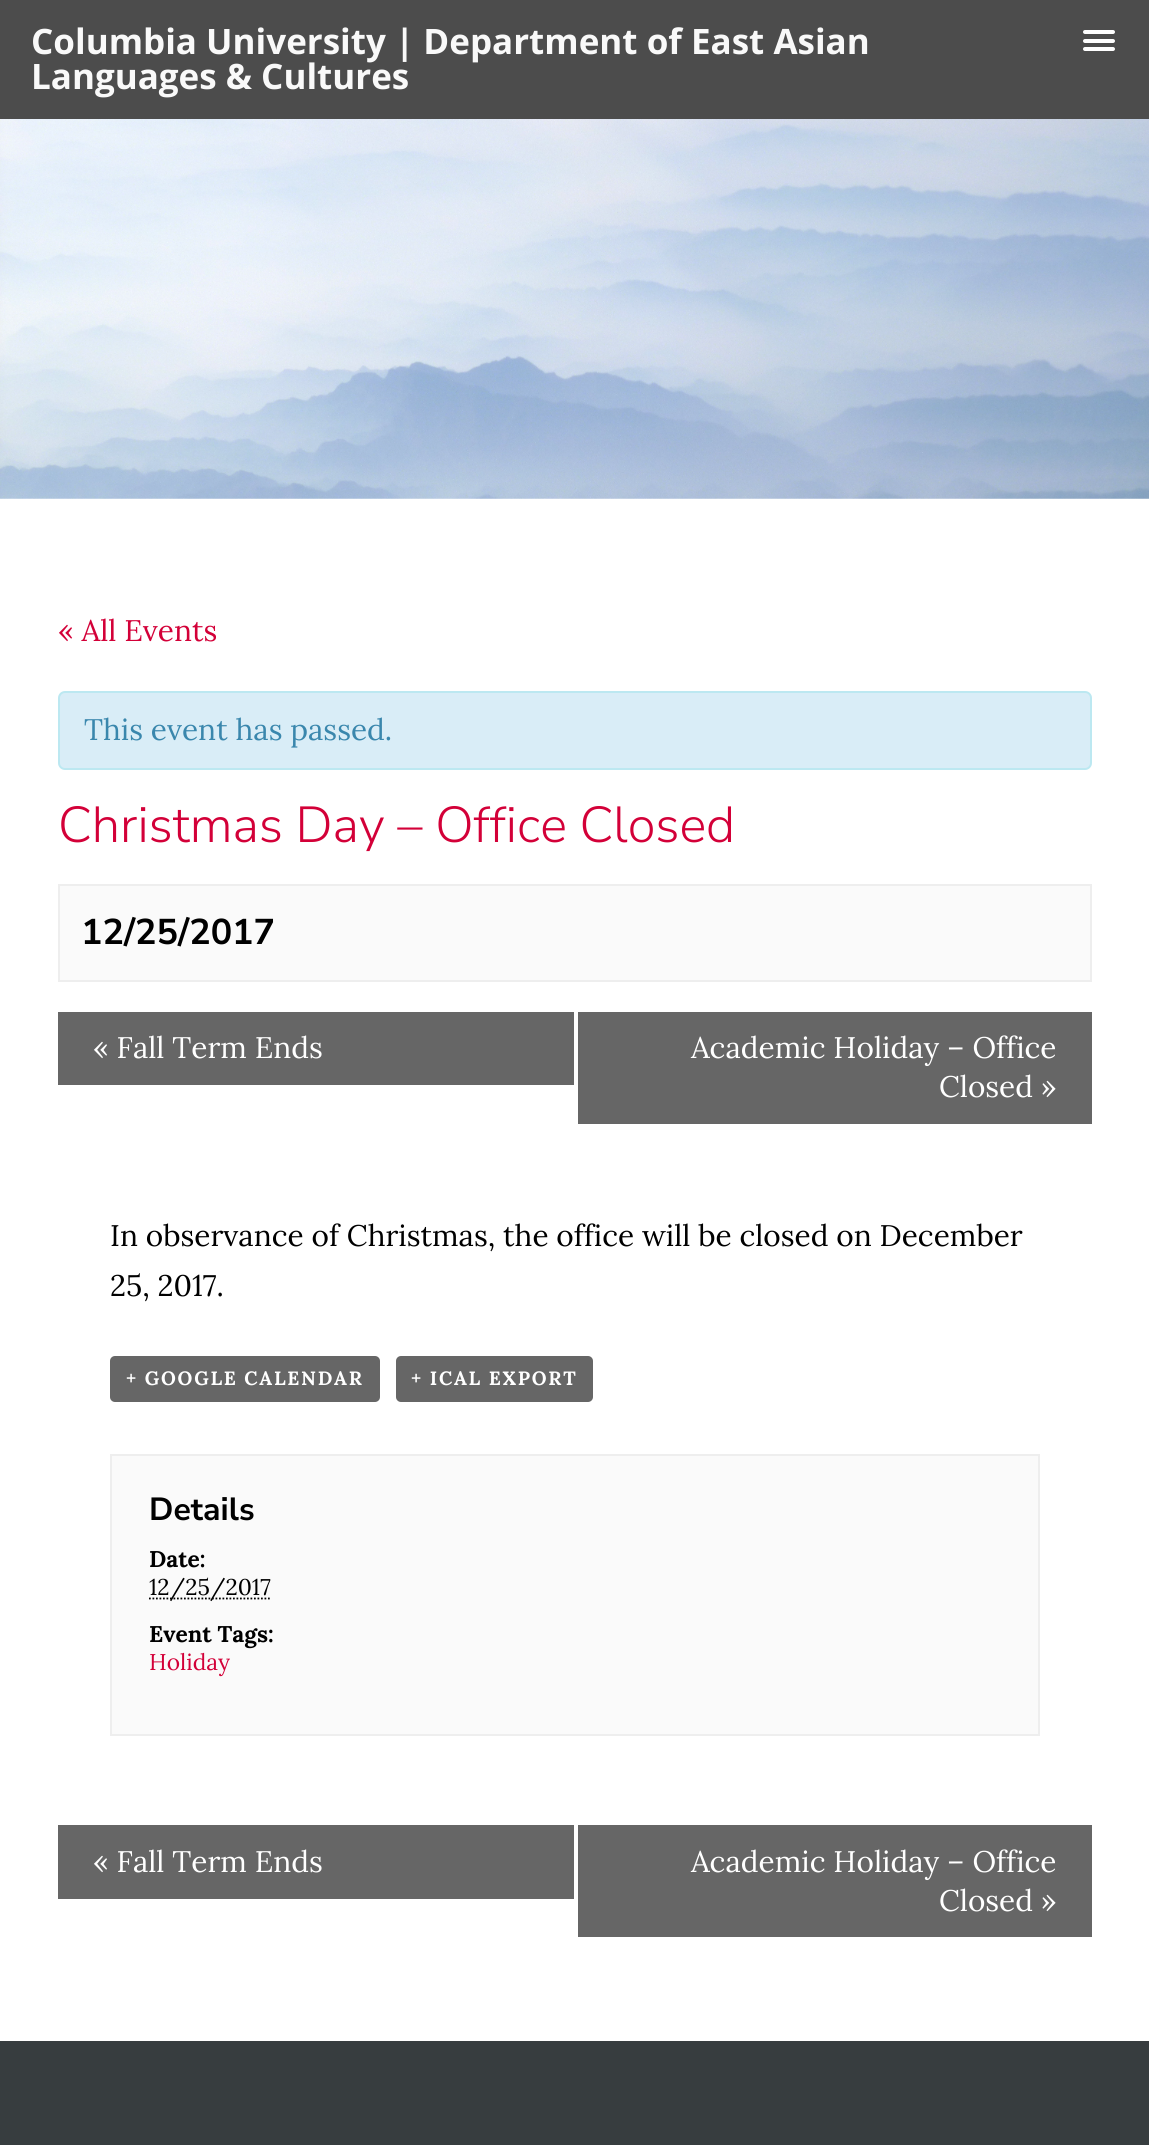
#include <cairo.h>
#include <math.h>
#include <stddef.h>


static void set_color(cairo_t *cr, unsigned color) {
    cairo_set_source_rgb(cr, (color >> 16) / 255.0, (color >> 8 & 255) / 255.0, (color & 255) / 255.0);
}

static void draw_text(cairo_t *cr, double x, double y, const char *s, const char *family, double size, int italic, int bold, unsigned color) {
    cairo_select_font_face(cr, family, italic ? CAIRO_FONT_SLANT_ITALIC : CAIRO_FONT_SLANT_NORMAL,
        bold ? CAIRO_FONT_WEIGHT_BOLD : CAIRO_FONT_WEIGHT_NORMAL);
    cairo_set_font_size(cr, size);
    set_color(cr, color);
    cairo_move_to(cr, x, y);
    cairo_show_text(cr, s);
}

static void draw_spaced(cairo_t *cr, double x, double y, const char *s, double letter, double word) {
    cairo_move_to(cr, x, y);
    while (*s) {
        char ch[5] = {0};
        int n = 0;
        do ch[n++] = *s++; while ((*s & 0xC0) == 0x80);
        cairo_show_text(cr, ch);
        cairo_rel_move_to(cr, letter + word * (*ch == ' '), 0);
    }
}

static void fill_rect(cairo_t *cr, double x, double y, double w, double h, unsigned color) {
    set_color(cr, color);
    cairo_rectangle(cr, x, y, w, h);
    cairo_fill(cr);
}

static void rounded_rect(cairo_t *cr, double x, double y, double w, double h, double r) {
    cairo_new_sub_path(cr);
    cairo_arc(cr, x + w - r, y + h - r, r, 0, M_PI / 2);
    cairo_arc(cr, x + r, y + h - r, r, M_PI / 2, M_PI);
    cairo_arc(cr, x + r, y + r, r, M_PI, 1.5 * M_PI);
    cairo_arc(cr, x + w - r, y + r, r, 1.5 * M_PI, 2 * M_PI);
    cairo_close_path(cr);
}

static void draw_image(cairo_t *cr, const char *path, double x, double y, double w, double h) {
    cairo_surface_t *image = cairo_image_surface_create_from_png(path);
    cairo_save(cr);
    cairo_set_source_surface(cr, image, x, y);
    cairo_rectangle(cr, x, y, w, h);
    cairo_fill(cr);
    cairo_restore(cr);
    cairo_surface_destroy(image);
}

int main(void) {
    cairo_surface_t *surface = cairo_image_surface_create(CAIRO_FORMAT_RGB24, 1149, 2145);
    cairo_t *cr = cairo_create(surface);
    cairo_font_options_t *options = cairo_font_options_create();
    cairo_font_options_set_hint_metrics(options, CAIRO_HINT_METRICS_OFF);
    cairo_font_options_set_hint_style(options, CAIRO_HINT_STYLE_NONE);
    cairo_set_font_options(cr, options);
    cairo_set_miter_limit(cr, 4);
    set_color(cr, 0xFFFFFF);
    cairo_paint(cr);
    fill_rect(cr, 0, 0, 1149, 119, 0x4C4C4C);
    draw_text(cr, 31, 54, "Columbia University | Department of East Asian", "Open Sans", 35, 0, 1, 0xF9F9F9);
    draw_text(cr, 31, 89, "Languages & Cultures", "Open Sans", 35, 0, 1, 0xF9F9F9);
    set_color(cr, 0xFFFFFF);
    rounded_rect(cr, 1083, 30, 32, 4, 2);
    cairo_fill(cr);
    rounded_rect(cr, 1083, 39, 32, 4, 2);
    cairo_fill(cr);
    rounded_rect(cr, 1083, 47, 32, 4, 2);
    cairo_fill(cr);
    draw_image(cr, "assets/img1.png", 0, 119, 1149, 380);
    draw_text(cr, 58, 641, "« All Events", "Lora", 29.75, 0, 0, 0xD30038);
    set_color(cr, 0xD9EDF7);
    rounded_rect(cr, 59, 692, 1032, 77, 6);
    cairo_fill_preserve(cr);
    set_color(cr, 0xBCE8F1);
    cairo_stroke(cr);
    draw_text(cr, 84, 740, "This event has passed.", "Lora", 29.75, 0, 0, 0x3A87AD);
    draw_text(cr, 58, 842, "Christmas Day – Office Closed", "Nunito Sans Light", 50.5, 0, 0, 0xD30038);
    set_color(cr, 0xFAFAFA);
    cairo_rectangle(cr, 59, 885, 1032, 96);
    cairo_fill_preserve(cr);
    set_color(cr, 0xEEEEEE);
    cairo_stroke(cr);
    draw_text(cr, 81, 944, "12/25/2017", "Nunito Sans", 35.75, 0, 1, 0x000000);
    fill_rect(cr, 58, 1012, 516, 73, 0x666666);
    draw_text(cr, 93, 1058, "« Fall Term Ends", "Lora", 29.75, 0, 0, 0xFFFFFF);
    fill_rect(cr, 578, 1012, 514, 112, 0x666666);
    draw_text(cr, 691, 1058, "Academic Holiday – Office", "Lora", 29.75, 0, 0, 0xFFFFFF);
    draw_text(cr, 939, 1097, "Closed »", "Lora", 29.75, 0, 0, 0xFFFFFF);
    draw_text(cr, 110, 1246, "In observance of Christmas, the office will be closed on December", "Lora", 29.75, 0, 0, 0x000000);
    draw_text(cr, 110, 1296, "25, 2017.", "Lora", 29.75, 0, 0, 0x000000);
    set_color(cr, 0x666666);
    rounded_rect(cr, 110, 1356, 270, 46, 5);
    cairo_fill(cr);
    cairo_select_font_face(cr, "Lora", CAIRO_FONT_SLANT_NORMAL, CAIRO_FONT_WEIGHT_BOLD);
    cairo_set_font_size(cr, 19.25);
    set_color(cr, 0xFFFFFF);
    draw_spaced(cr, 126, 1385, "+ GOOGLE CALENDAR", 1.75, 0);
    set_color(cr, 0x666666);
    rounded_rect(cr, 396, 1356, 197, 46, 5);
    cairo_fill(cr);
    set_color(cr, 0xFFFFFF);
    draw_spaced(cr, 411, 1385, "+ ICAL EXPORT", 1.75, 0);
    set_color(cr, 0xFAFAFA);
    cairo_rectangle(cr, 111, 1455, 928, 280);
    cairo_fill_preserve(cr);
    set_color(cr, 0xEEEEEE);
    cairo_stroke(cr);
    draw_text(cr, 149, 1520, "Details", "Nunito Sans", 32, 0, 1, 0x000000);
    draw_text(cr, 149, 1567, "Date:", "Lora", 22.75, 0, 1, 0x000000);
    cairo_new_path(cr);
    cairo_move_to(cr, 149, 1598.5);
    cairo_line_to(cr, 271, 1598.5);
    cairo_set_line_width(cr, 1.8);
    cairo_set_dash(cr, (double[]){1.75, 1.75}, 2, 0);
    cairo_stroke(cr);
    draw_text(cr, 149, 1595, "12/25/2017", "Lora", 22.75, 0, 0, 0x000000);
    draw_text(cr, 149, 1642, "Event Tags:", "Lora", 22.75, 0, 1, 0x000000);
    draw_text(cr, 149, 1670, "Holiday", "Lora", 22.75, 0, 0, 0xD30038);
    fill_rect(cr, 58, 1825, 516, 74, 0x666666);
    draw_text(cr, 93, 1872, "« Fall Term Ends", "Lora", 29.75, 0, 0, 0xFFFFFF);
    fill_rect(cr, 578, 1825, 514, 112, 0x666666);
    draw_text(cr, 691, 1872, "Academic Holiday – Office", "Lora", 29.75, 0, 0, 0xFFFFFF);
    draw_text(cr, 939, 1911, "Closed »", "Lora", 29.75, 0, 0, 0xFFFFFF);
    fill_rect(cr, 0, 2041, 1149, 104, 0x373D3F);
    cairo_surface_write_to_png(surface, "output.png");
    cairo_font_options_destroy(options);
    cairo_destroy(cr);
    cairo_surface_destroy(surface);
    return 0;
}
